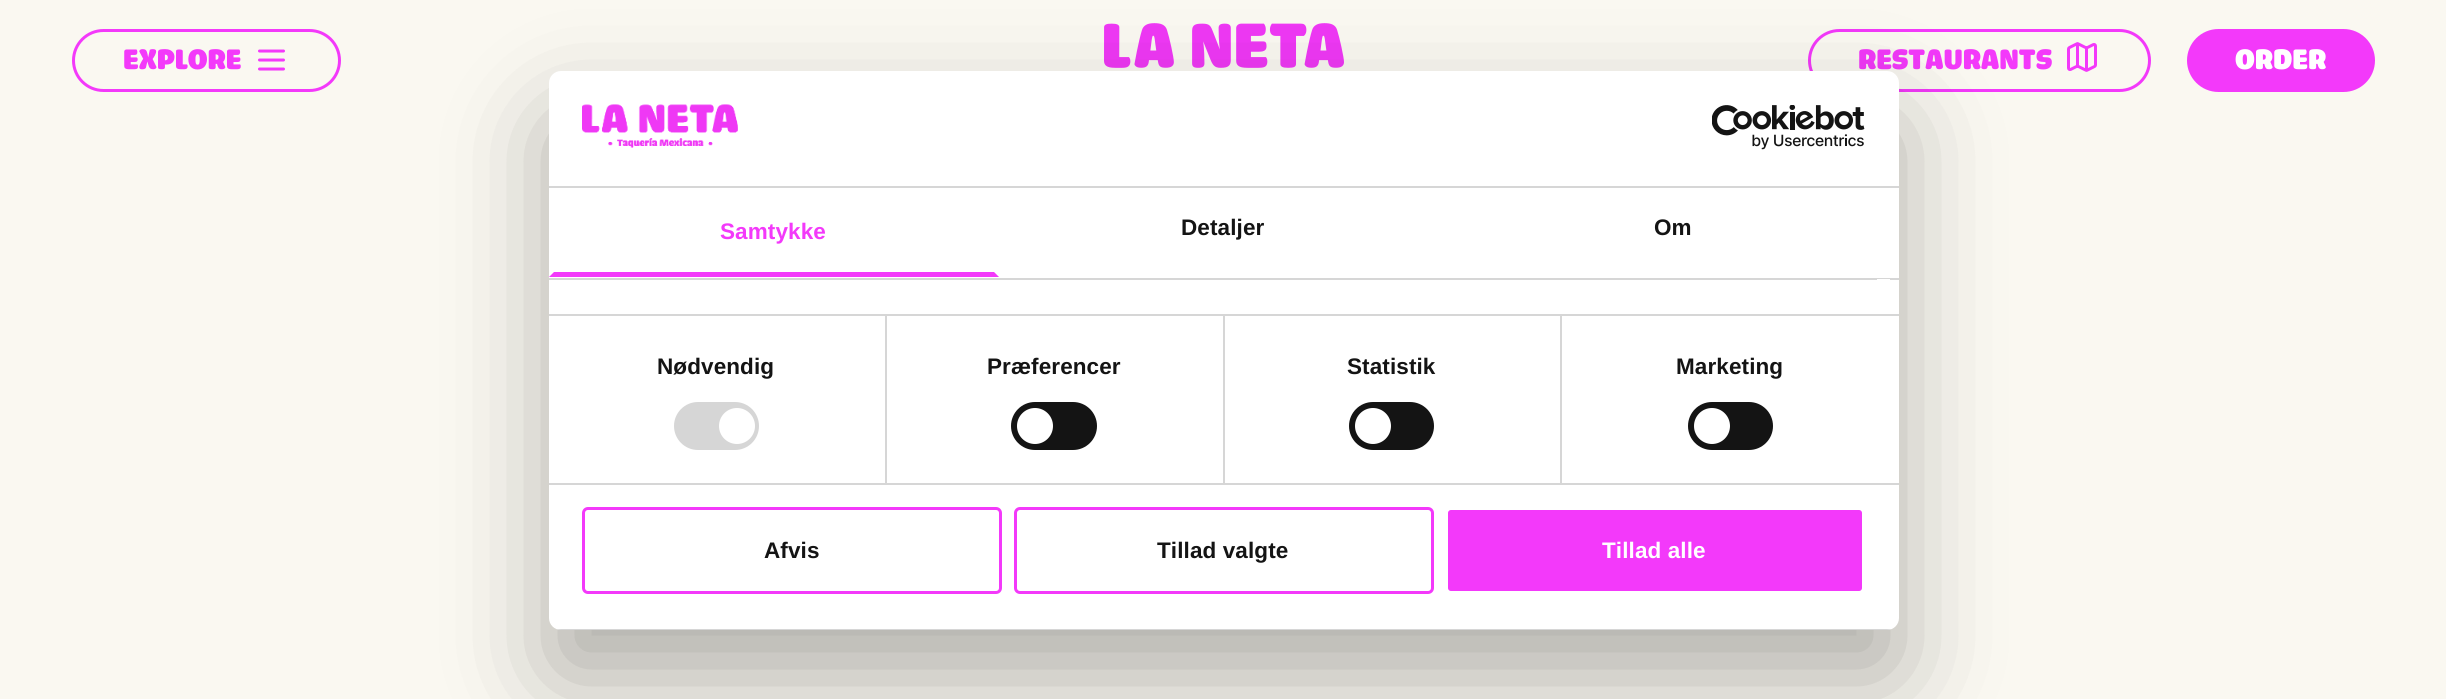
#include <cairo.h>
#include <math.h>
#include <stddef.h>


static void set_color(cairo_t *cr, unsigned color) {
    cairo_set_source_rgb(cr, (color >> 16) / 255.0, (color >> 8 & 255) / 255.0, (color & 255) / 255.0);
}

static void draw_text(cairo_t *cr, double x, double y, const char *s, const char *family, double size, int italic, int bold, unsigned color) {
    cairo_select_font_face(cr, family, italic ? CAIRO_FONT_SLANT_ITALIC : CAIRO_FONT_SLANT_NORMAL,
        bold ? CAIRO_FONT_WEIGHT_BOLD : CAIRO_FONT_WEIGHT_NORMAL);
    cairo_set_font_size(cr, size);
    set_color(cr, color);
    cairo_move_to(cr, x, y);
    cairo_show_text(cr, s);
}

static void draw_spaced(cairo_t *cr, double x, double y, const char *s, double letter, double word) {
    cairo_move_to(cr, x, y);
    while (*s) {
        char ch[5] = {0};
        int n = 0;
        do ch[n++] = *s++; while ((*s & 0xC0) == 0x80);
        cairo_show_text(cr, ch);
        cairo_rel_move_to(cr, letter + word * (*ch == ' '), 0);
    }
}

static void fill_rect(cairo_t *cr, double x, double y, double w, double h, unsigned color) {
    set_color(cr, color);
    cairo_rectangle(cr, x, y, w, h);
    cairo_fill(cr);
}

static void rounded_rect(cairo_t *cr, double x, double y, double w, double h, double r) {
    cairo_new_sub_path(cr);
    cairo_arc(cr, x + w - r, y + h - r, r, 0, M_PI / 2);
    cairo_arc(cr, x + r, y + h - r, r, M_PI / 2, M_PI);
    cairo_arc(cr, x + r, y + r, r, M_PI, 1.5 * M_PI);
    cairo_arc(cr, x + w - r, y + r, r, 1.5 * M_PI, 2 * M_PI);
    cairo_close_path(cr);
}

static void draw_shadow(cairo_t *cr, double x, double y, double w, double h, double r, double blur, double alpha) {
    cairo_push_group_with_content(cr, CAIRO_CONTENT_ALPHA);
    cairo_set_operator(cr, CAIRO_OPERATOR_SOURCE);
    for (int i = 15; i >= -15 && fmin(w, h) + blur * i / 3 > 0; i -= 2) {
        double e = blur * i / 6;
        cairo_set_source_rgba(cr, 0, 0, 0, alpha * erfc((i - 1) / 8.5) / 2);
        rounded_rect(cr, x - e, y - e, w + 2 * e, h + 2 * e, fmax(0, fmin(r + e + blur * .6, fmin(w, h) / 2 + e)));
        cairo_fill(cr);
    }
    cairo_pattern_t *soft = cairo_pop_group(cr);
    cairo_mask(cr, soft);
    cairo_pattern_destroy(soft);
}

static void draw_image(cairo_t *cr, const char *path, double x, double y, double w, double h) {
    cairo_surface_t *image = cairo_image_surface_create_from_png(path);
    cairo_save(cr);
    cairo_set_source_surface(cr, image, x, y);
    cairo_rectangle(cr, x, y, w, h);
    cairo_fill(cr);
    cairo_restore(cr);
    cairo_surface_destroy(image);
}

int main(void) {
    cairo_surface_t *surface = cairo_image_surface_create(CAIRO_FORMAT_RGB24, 2446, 699);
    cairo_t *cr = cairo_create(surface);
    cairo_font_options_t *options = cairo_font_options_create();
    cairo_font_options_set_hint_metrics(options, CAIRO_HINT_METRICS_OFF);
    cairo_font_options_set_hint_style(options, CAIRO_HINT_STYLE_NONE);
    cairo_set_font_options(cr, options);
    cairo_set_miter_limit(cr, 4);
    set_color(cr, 0xFAF8F1);
    cairo_paint(cr);
    rounded_rect(cr, 73.5, 30.5, 266, 60, 30);
    set_color(cr, 0xF339FA);
    cairo_set_line_width(cr, 3);
    cairo_stroke(cr);
    draw_text(cr, 123, 69, "EXPLORE", "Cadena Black", 30, 0, 0, 0xF339FA);
    cairo_new_path(cr);
    cairo_move_to(cr, 259.5, 60);
    cairo_line_to(cr, 283.5, 60);
    cairo_move_to(cr, 259.5, 51);
    cairo_line_to(cr, 283.5, 51);
    cairo_move_to(cr, 259.5, 69);
    cairo_line_to(cr, 283.5, 69);
    cairo_set_line_cap(cr, CAIRO_LINE_CAP_ROUND);
    cairo_set_line_join(cr, CAIRO_LINE_JOIN_ROUND);
    cairo_stroke(cr);
    draw_image(cr, "assets/img1.png", 1104, 23, 240, 45);
    rounded_rect(cr, 1809.5, 30.5, 340, 60, 30);
    cairo_set_line_cap(cr, CAIRO_LINE_CAP_BUTT);
    cairo_set_line_join(cr, CAIRO_LINE_JOIN_MITER);
    cairo_stroke(cr);
    draw_text(cr, 1858, 69, "RESTAURANTS", "Cadena Black", 30, 0, 0, 0xF339FA);
    draw_image(cr, "assets/img2.png", 2067, 42, 30, 30);
    rounded_rect(cr, 2187, 29, 188, 63, 31.5);
    cairo_fill(cr);
    draw_text(cr, 2235, 69, "ORDER", "Cadena Black", 30, 0, 0, 0xFFFFFF);
    set_color(cr, 0x000000);
    draw_shadow(cr, 549, 119, 1350, 559, 12, 51, 0.3);
    set_color(cr, 0xFFFFFF);
    rounded_rect(cr, 549, 71, 1350, 559, 12);
    cairo_fill(cr);
    fill_rect(cr, 549, 186, 1350, 2, 0xD6D6D6);
    draw_image(cr, "assets/img3.png", 582, 104, 156, 44);
    draw_image(cr, "assets/img4.png", 1712, 105, 153, 45);
    fill_rect(cr, 549, 278, 1350, 2, 0xD6D6D6);
    set_color(cr, 0xF339FA);
    cairo_new_path(cr);
    cairo_move_to(cr, 999, 277);
    cairo_line_to(cr, 549, 277);
    cairo_line_to(cr, 554, 272);
    cairo_line_to(cr, 994, 272);
    cairo_close_path(cr);
    cairo_fill(cr);
    cairo_select_font_face(cr, "Liberation Sans", CAIRO_FONT_SLANT_NORMAL, CAIRO_FONT_WEIGHT_BOLD);
    cairo_set_font_size(cr, 22.5);
    draw_spaced(cr, 720, 239, "Samtykke", 0.1, 0);
    set_color(cr, 0x141414);
    draw_spaced(cr, 1181, 235, "Detaljer", 0.1, 0);
    draw_spaced(cr, 1654, 235, "Om", 0.1, 0);
    fill_rect(cr, 885, 315, 2, 168, 0xD6D6D6);
    fill_rect(cr, 1223, 315, 2, 168, 0xD6D6D6);
    fill_rect(cr, 1560, 315, 2, 168, 0xD6D6D6);
    fill_rect(cr, 549, 314, 1350, 2, 0xD6D6D6);
    fill_rect(cr, 1877, 279, 13, 1, 0xFFFFFF);
    fill_rect(cr, 549, 483, 1350, 2, 0xD6D6D6);
    set_color(cr, 0x141414);
    draw_spaced(cr, 657, 374, "Nødvendig", 0.1, 0);
    set_color(cr, 0xD6D6D6);
    rounded_rect(cr, 674, 402, 85, 48, 24);
    cairo_fill(cr);
    set_color(cr, 0xFFFFFF);
    cairo_arc(cr, 737, 426, 18, 0, 2 * M_PI);
    cairo_fill(cr);
    set_color(cr, 0x141414);
    draw_spaced(cr, 987, 374, "Præferencer", 0.1, 0);
    rounded_rect(cr, 1011, 402, 86, 48, 24);
    cairo_fill(cr);
    set_color(cr, 0xFFFFFF);
    cairo_arc(cr, 1035, 426, 18, 0, 2 * M_PI);
    cairo_fill(cr);
    set_color(cr, 0x141414);
    draw_spaced(cr, 1347, 374, "Statistik", 0.1, 0);
    rounded_rect(cr, 1349, 402, 85, 48, 24);
    cairo_fill(cr);
    set_color(cr, 0xFFFFFF);
    cairo_arc(cr, 1373, 426, 18, 0, 2 * M_PI);
    cairo_fill(cr);
    set_color(cr, 0x141414);
    draw_spaced(cr, 1676, 374, "Marketing", 0.1, 0);
    rounded_rect(cr, 1688, 402, 85, 48, 24);
    cairo_fill(cr);
    set_color(cr, 0xFFFFFF);
    cairo_arc(cr, 1712, 426, 18, 0, 2 * M_PI);
    cairo_fill(cr);
    cairo_save(cr);
    rounded_rect(cr, 549, 71, 1350, 559, 12);
    cairo_clip(cr);
    fill_rect(cr, 549, 629, 1350, 1, 0xD6D6D6);
    cairo_restore(cr);
    rounded_rect(cr, 583.5, 508.5, 417, 84, 4.5);
    set_color(cr, 0xF339FA);
    cairo_stroke(cr);
    set_color(cr, 0x141414);
    draw_spaced(cr, 764, 558, "Afvis", 0.1, 0);
    rounded_rect(cr, 1015.5, 508.5, 417, 84, 4.5);
    set_color(cr, 0xF339FA);
    cairo_stroke(cr);
    set_color(cr, 0x141414);
    draw_spaced(cr, 1157, 558, "Tillad valgte", 0.1, 0);
    set_color(cr, 0xF339FA);
    rounded_rect(cr, 1446.5, 508.5, 417, 84, 4.5);
    cairo_fill_preserve(cr);
    set_color(cr, 0xFFFFFF);
    cairo_stroke(cr);
    draw_spaced(cr, 1602, 558, "Tillad alle", 0.1, 0);
    cairo_surface_write_to_png(surface, "output.png");
    cairo_font_options_destroy(options);
    cairo_destroy(cr);
    cairo_surface_destroy(surface);
    return 0;
}
